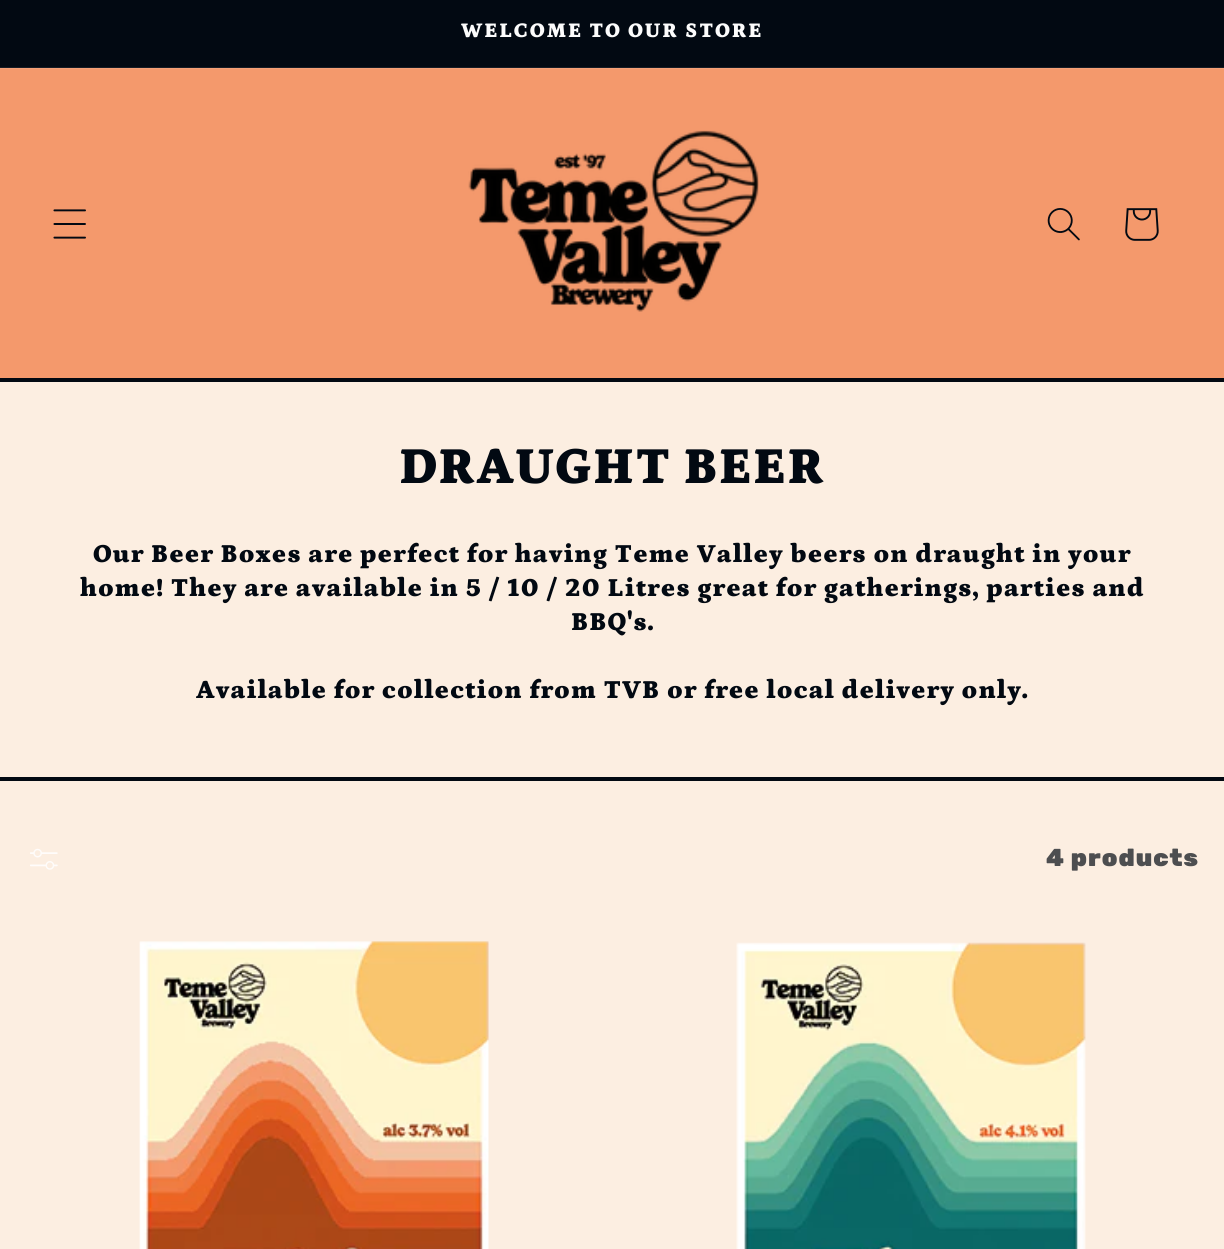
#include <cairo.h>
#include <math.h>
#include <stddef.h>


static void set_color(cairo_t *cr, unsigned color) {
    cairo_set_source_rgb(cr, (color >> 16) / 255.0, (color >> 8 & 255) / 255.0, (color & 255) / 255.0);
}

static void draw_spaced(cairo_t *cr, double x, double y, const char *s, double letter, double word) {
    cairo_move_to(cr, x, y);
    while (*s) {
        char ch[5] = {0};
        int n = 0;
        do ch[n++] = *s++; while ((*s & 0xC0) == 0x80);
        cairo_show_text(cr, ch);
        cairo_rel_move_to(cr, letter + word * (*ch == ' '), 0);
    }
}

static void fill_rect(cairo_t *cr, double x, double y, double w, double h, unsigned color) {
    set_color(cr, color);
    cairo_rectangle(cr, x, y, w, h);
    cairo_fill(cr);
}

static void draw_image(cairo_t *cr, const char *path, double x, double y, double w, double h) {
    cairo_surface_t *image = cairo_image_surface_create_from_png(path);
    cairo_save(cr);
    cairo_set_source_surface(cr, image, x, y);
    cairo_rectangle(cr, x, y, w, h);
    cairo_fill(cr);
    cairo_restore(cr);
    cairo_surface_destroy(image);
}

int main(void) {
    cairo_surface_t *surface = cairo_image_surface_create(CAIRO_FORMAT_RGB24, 1224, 1249);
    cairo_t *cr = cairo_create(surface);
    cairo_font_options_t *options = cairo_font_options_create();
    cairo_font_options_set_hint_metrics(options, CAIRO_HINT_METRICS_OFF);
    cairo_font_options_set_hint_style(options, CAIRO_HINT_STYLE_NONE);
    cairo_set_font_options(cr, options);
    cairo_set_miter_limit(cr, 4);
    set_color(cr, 0xFCEEE1);
    cairo_paint(cr);
    fill_rect(cr, 0, 0, 1224, 67, 0x020912);
    fill_rect(cr, 0, 67, 1224, 1, 0x161C25);
    cairo_select_font_face(cr, "Petrona Black", CAIRO_FONT_SLANT_NORMAL, CAIRO_FONT_WEIGHT_NORMAL);
    cairo_set_font_size(cr, 21);
    set_color(cr, 0xFCFCFC);
    draw_spaced(cr, 461, 37, "WELCOME TO OUR STORE", 1.75, 0);
    fill_rect(cr, 0, 69, 1224, 309, 0xF4996C);
    fill_rect(cr, 0, 68, 1224, 1, 0xF5A178);
    draw_image(cr, "assets/img1.png", 53, 209, 33, 30);
    draw_image(cr, "assets/img2.png", 468, 130, 291, 182);
    draw_image(cr, "assets/img3.png", 1047, 208, 33, 33);
    draw_image(cr, "assets/img4.png", 1125, 208, 34, 33);
    fill_rect(cr, 0, 378, 1224, 4, 0x020912);
    fill_rect(cr, 0, 777, 1224, 4, 0x020912);
    cairo_set_font_size(cr, 52.5);
    draw_spaced(cr, 399, 483, "DRAUGHT BEER", 1.05, 0);
    cairo_set_font_size(cr, 26.25);
    draw_spaced(cr, 93, 562, "Our Beer Boxes are perfect for having Teme Valley beers on draught in your", 1.05, 0);
    draw_spaced(cr, 80, 596, "home! They are available in 5 / 10 / 20 Litres great for gatherings, parties and", 1.05, 0);
    draw_spaced(cr, 571, 630, "BBQ's.", 1.05, 0);
    draw_spaced(cr, 196, 698, "Available for collection from TVB or free local delivery only.", 1.05, 0);
    draw_image(cr, "assets/img5.png", 30, 848, 28, 22);
    cairo_select_font_face(cr, "Rubik Black", CAIRO_FONT_SLANT_NORMAL, CAIRO_FONT_WEIGHT_NORMAL);
    cairo_set_font_size(cr, 24.5);
    set_color(cr, 0x4D4E50);
    draw_spaced(cr, 1046, 866, "4 products", 1.05, 0);
    draw_image(cr, "assets/img6.png", 139, 941, 350, 308);
    draw_image(cr, "assets/img7.png", 736, 942, 350, 307);
    cairo_surface_write_to_png(surface, "output.png");
    cairo_font_options_destroy(options);
    cairo_destroy(cr);
    cairo_surface_destroy(surface);
    return 0;
}
